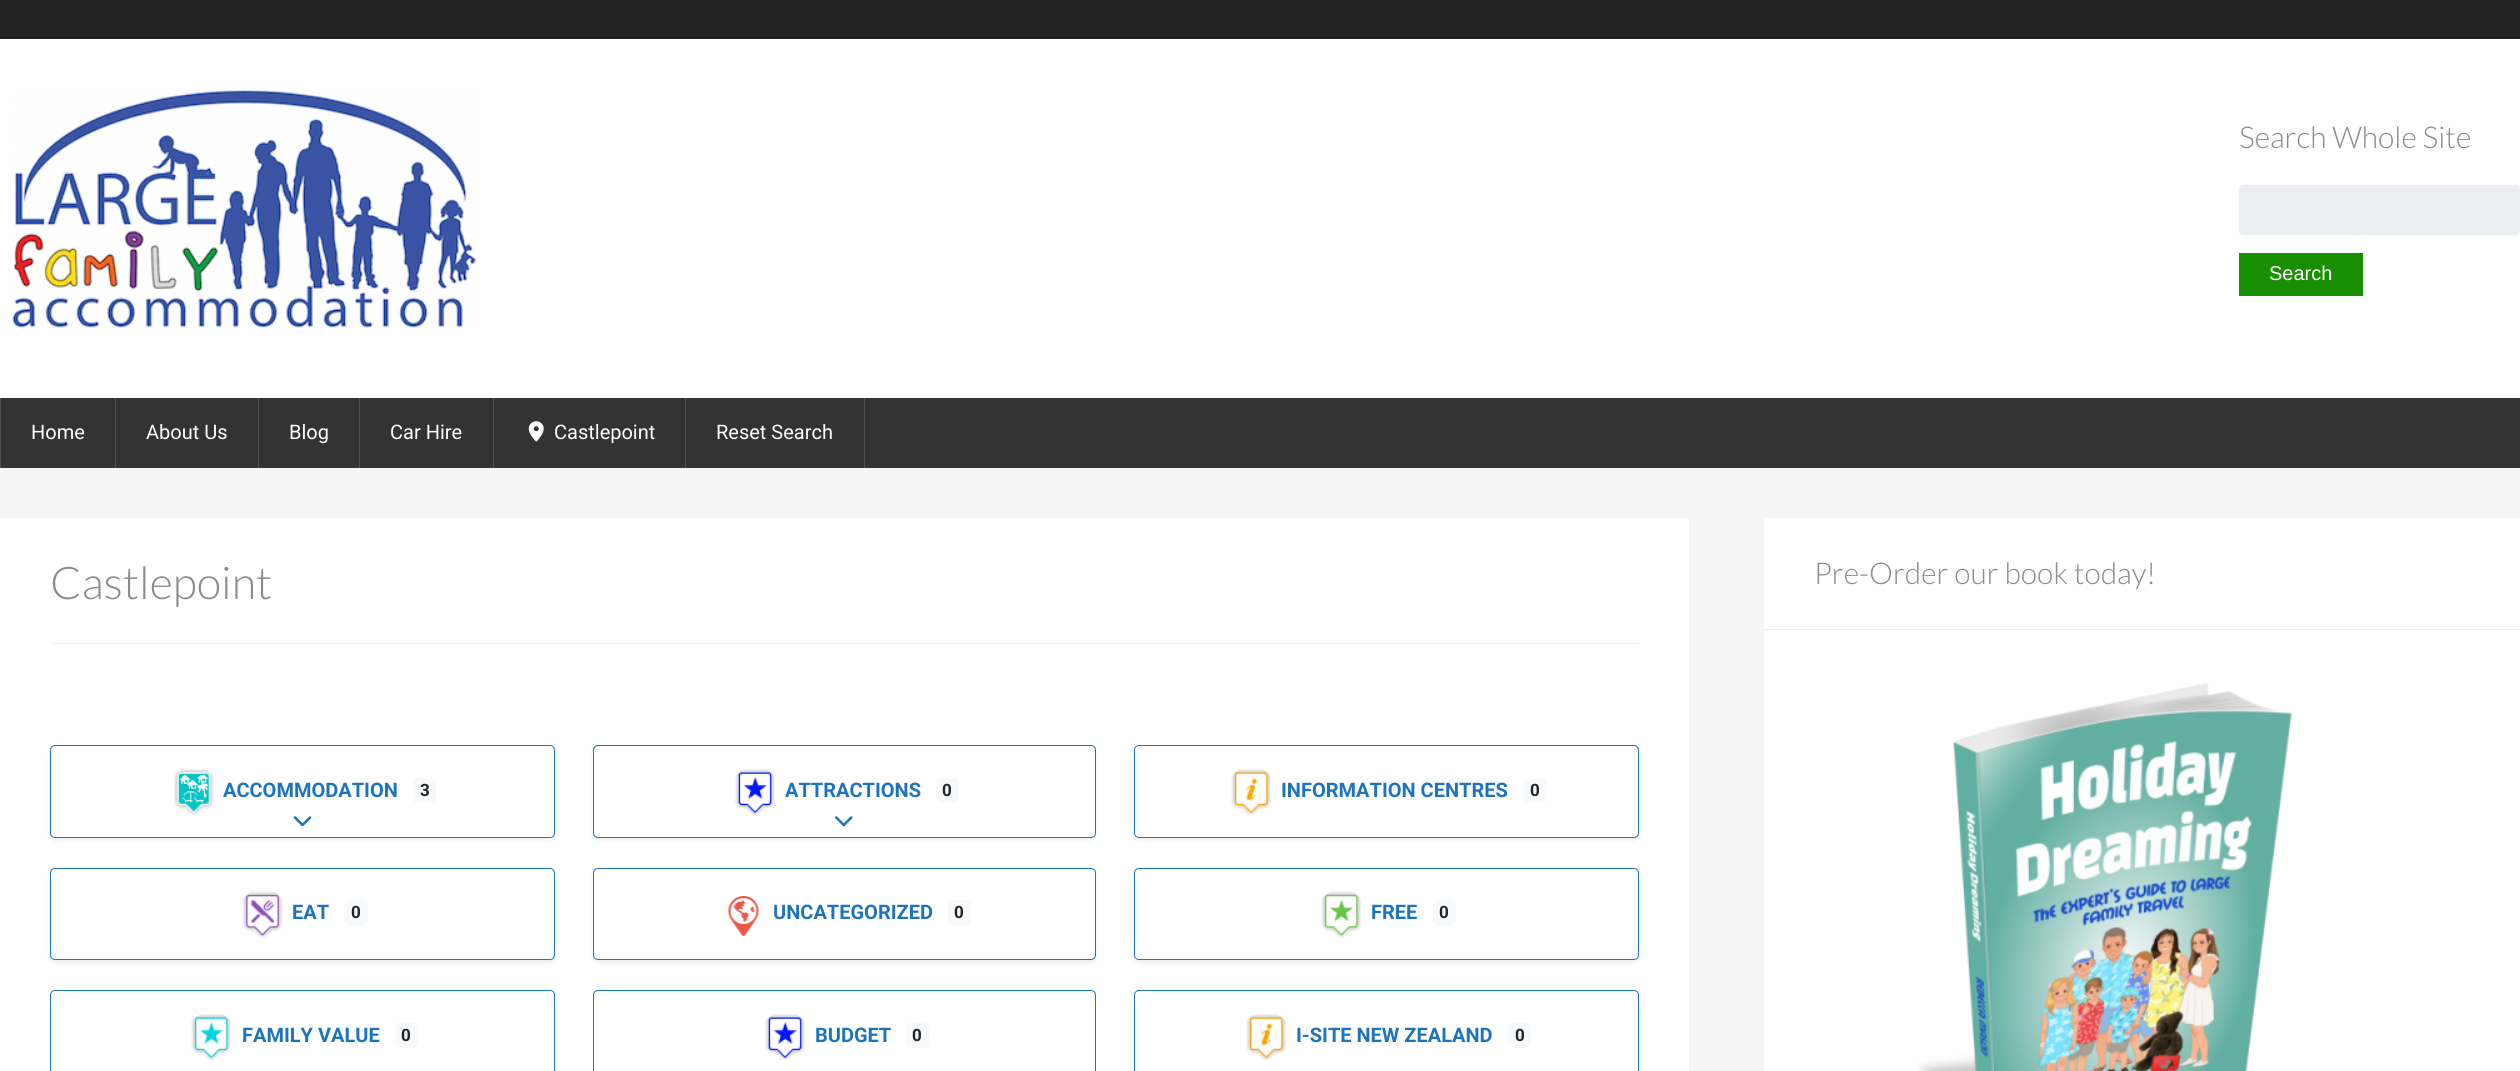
#include <cairo.h>
#include <math.h>
#include <stddef.h>


static void set_color(cairo_t *cr, unsigned color) {
    cairo_set_source_rgb(cr, (color >> 16) / 255.0, (color >> 8 & 255) / 255.0, (color & 255) / 255.0);
}

static void draw_text(cairo_t *cr, double x, double y, const char *s, const char *family, double size, int italic, int bold, unsigned color) {
    cairo_select_font_face(cr, family, italic ? CAIRO_FONT_SLANT_ITALIC : CAIRO_FONT_SLANT_NORMAL,
        bold ? CAIRO_FONT_WEIGHT_BOLD : CAIRO_FONT_WEIGHT_NORMAL);
    cairo_set_font_size(cr, size);
    set_color(cr, color);
    cairo_move_to(cr, x, y);
    cairo_show_text(cr, s);
}

static void fill_rect(cairo_t *cr, double x, double y, double w, double h, unsigned color) {
    set_color(cr, color);
    cairo_rectangle(cr, x, y, w, h);
    cairo_fill(cr);
}

static void rounded_rect(cairo_t *cr, double x, double y, double w, double h, double r) {
    cairo_new_sub_path(cr);
    cairo_arc(cr, x + w - r, y + h - r, r, 0, M_PI / 2);
    cairo_arc(cr, x + r, y + h - r, r, M_PI / 2, M_PI);
    cairo_arc(cr, x + r, y + r, r, M_PI, 1.5 * M_PI);
    cairo_arc(cr, x + w - r, y + r, r, 1.5 * M_PI, 2 * M_PI);
    cairo_close_path(cr);
}

static void draw_shadow(cairo_t *cr, double x, double y, double w, double h, double r, double blur, double alpha) {
    cairo_push_group_with_content(cr, CAIRO_CONTENT_ALPHA);
    cairo_set_operator(cr, CAIRO_OPERATOR_SOURCE);
    for (int i = 15; i >= -15 && fmin(w, h) + blur * i / 3 > 0; i -= 2) {
        double e = blur * i / 6;
        cairo_set_source_rgba(cr, 0, 0, 0, alpha * erfc((i - 1) / 8.5) / 2);
        rounded_rect(cr, x - e, y - e, w + 2 * e, h + 2 * e, fmax(0, fmin(r + e + blur * .6, fmin(w, h) / 2 + e)));
        cairo_fill(cr);
    }
    cairo_pattern_t *soft = cairo_pop_group(cr);
    cairo_mask(cr, soft);
    cairo_pattern_destroy(soft);
}

static void draw_image(cairo_t *cr, const char *path, double x, double y, double w, double h) {
    cairo_surface_t *image = cairo_image_surface_create_from_png(path);
    cairo_save(cr);
    cairo_set_source_surface(cr, image, x, y);
    cairo_rectangle(cr, x, y, w, h);
    cairo_fill(cr);
    cairo_restore(cr);
    cairo_surface_destroy(image);
}

int main(void) {
    cairo_surface_t *surface = cairo_image_surface_create(CAIRO_FORMAT_RGB24, 2520, 1071);
    cairo_t *cr = cairo_create(surface);
    cairo_font_options_t *options = cairo_font_options_create();
    cairo_font_options_set_hint_metrics(options, CAIRO_HINT_METRICS_OFF);
    cairo_font_options_set_hint_style(options, CAIRO_HINT_STYLE_NONE);
    cairo_set_font_options(cr, options);
    cairo_set_miter_limit(cr, 4);
    set_color(cr, 0xF5F5F5);
    cairo_paint(cr);
    fill_rect(cr, 0, 39, 2520, 359, 0xFFFFFF);
    fill_rect(cr, 0, 0, 2520, 39, 0x222222);
    draw_image(cr, "assets/img1.png", 12, 90, 465, 238);
    draw_text(cr, 2239, 148, "Search Whole Site", "Lato Light", 30, 0, 0, 0x8B8B8B);
    set_color(cr, 0xEAEDF2);
    rounded_rect(cr, 2239, 185, 281, 50, 4);
    cairo_fill(cr);
    fill_rect(cr, 2239, 253, 124, 43, 0x188E01);
    draw_text(cr, 2269, 280, "Search", "Liberation Sans", 20, 0, 0, 0xFFFFFF);
    fill_rect(cr, 1, 398, 2519, 70, 0x333333);
    fill_rect(cr, 115, 398, 1, 70, 0x525252);
    fill_rect(cr, 0, 398, 1, 70, 0x525252);
    draw_text(cr, 31, 439, "Home", "Roboto", 20, 0, 0, 0xFFFFFF);
    fill_rect(cr, 258, 398, 1, 70, 0x525252);
    draw_text(cr, 146, 439, "About Us", "Roboto", 20, 0, 0, 0xFFFFFF);
    fill_rect(cr, 359, 398, 1, 70, 0x525252);
    draw_text(cr, 289, 439, "Blog", "Roboto", 20, 0, 0, 0xFFFFFF);
    fill_rect(cr, 493, 398, 1, 70, 0x525252);
    draw_text(cr, 390, 439, "Car Hire", "Roboto", 20, 0, 0, 0xFFFFFF);
    fill_rect(cr, 685, 398, 1, 70, 0x525252);
    draw_image(cr, "assets/img2.png", 528, 421, 16, 21);
    draw_text(cr, 554, 439, "Castlepoint", "Roboto", 20, 0, 0, 0xFFFFFF);
    fill_rect(cr, 864, 398, 1, 70, 0x525252);
    draw_text(cr, 716, 439, "Reset Search", "Roboto", 20, 0, 0, 0xFFFFFF);
    fill_rect(cr, 0, 518, 1689, 553, 0xFFFFFF);
    fill_rect(cr, 50, 643, 1589, 1, 0xEEEEEE);
    draw_text(cr, 50, 599, "Castlepoint", "Lato Light", 45, 0, 0, 0x8B8B8B);
    cairo_save(cr);
    cairo_set_fill_rule(cr, CAIRO_FILL_RULE_EVEN_ODD);
    cairo_new_path(cr);
    cairo_move_to(cr, 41, 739);
    cairo_line_to(cr, 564, 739);
    cairo_line_to(cr, 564, 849);
    cairo_line_to(cr, 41, 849);
    cairo_close_path(cr);
    cairo_move_to(cr, 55, 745);
    cairo_line_to(cr, 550, 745);
    cairo_curve_to(cr, 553, 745, 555, 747, 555, 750);
    cairo_line_to(cr, 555, 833);
    cairo_curve_to(cr, 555, 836, 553, 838, 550, 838);
    cairo_line_to(cr, 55, 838);
    cairo_curve_to(cr, 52, 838, 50, 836, 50, 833);
    cairo_line_to(cr, 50, 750);
    cairo_curve_to(cr, 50, 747, 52, 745, 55, 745);
    cairo_close_path(cr);
    cairo_clip(cr);
    set_color(cr, 0x000000);
    draw_shadow(cr, 50, 748, 505, 92, 5, 2.5, 0.07);
    cairo_restore(cr);
    rounded_rect(cr, 50.5, 745.5, 504, 92, 4.5);
    set_color(cr, 0x1E73BE);
    cairo_set_line_width(cr, 1);
    cairo_stroke(cr);
    draw_image(cr, "assets/img3.png", 174, 769, 40, 46);
    draw_text(cr, 223, 797, "ACCOMMODATION", "Roboto", 20, 0, 1, 0x1E73BE);
    set_color(cr, 0xF8F9FA);
    rounded_rect(cr, 413, 778, 23, 25, 5);
    cairo_fill(cr);
    draw_text(cr, 420, 796, "3", "Roboto", 17, 0, 1, 0x212529);
    draw_image(cr, "assets/img4.png", 293, 816, 19, 11);
    cairo_save(cr);
    cairo_set_fill_rule(cr, CAIRO_FILL_RULE_EVEN_ODD);
    cairo_new_path(cr);
    cairo_move_to(cr, 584, 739);
    cairo_line_to(cr, 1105, 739);
    cairo_line_to(cr, 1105, 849);
    cairo_line_to(cr, 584, 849);
    cairo_close_path(cr);
    cairo_move_to(cr, 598, 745);
    cairo_line_to(cr, 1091, 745);
    cairo_curve_to(cr, 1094, 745, 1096, 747, 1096, 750);
    cairo_line_to(cr, 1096, 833);
    cairo_curve_to(cr, 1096, 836, 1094, 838, 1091, 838);
    cairo_line_to(cr, 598, 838);
    cairo_curve_to(cr, 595, 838, 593, 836, 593, 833);
    cairo_line_to(cr, 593, 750);
    cairo_curve_to(cr, 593, 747, 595, 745, 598, 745);
    cairo_close_path(cr);
    cairo_clip(cr);
    set_color(cr, 0x000000);
    draw_shadow(cr, 593, 748, 503, 92, 5, 2.5, 0.07);
    cairo_restore(cr);
    rounded_rect(cr, 593.5, 745.5, 502, 92, 4.5);
    set_color(cr, 0x1E73BE);
    cairo_stroke(cr);
    draw_image(cr, "assets/img5.png", 735, 769, 40, 46);
    draw_text(cr, 785, 797, "ATTRACTIONS", "Roboto", 20, 0, 1, 0x1E73BE);
    set_color(cr, 0xF8F9FA);
    rounded_rect(cr, 936, 778, 23, 25, 5);
    cairo_fill(cr);
    draw_text(cr, 942, 796, "0", "Roboto", 17, 0, 1, 0x212529);
    draw_image(cr, "assets/img6.png", 835, 816, 18, 11);
    cairo_save(cr);
    cairo_set_fill_rule(cr, CAIRO_FILL_RULE_EVEN_ODD);
    cairo_new_path(cr);
    cairo_move_to(cr, 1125, 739);
    cairo_line_to(cr, 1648, 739);
    cairo_line_to(cr, 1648, 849);
    cairo_line_to(cr, 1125, 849);
    cairo_close_path(cr);
    cairo_move_to(cr, 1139, 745);
    cairo_line_to(cr, 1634, 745);
    cairo_curve_to(cr, 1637, 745, 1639, 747, 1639, 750);
    cairo_line_to(cr, 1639, 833);
    cairo_curve_to(cr, 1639, 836, 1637, 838, 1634, 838);
    cairo_line_to(cr, 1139, 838);
    cairo_curve_to(cr, 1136, 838, 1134, 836, 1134, 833);
    cairo_line_to(cr, 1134, 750);
    cairo_curve_to(cr, 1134, 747, 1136, 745, 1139, 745);
    cairo_close_path(cr);
    cairo_clip(cr);
    set_color(cr, 0x000000);
    draw_shadow(cr, 1134, 748, 505, 92, 5, 2.5, 0.07);
    cairo_restore(cr);
    rounded_rect(cr, 1134.5, 745.5, 504, 92, 4.5);
    set_color(cr, 0x1E73BE);
    cairo_stroke(cr);
    draw_image(cr, "assets/img7.png", 1231, 769, 40, 46);
    draw_text(cr, 1281, 797, "INFORMATION CENTRES", "Roboto", 20, 0, 1, 0x1E73BE);
    set_color(cr, 0xF8F9FA);
    rounded_rect(cr, 1523, 778, 23, 25, 5);
    cairo_fill(cr);
    draw_text(cr, 1530, 796, "0", "Roboto", 17, 0, 1, 0x212529);
    cairo_save(cr);
    cairo_set_fill_rule(cr, CAIRO_FILL_RULE_EVEN_ODD);
    cairo_new_path(cr);
    cairo_move_to(cr, 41, 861);
    cairo_line_to(cr, 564, 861);
    cairo_line_to(cr, 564, 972);
    cairo_line_to(cr, 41, 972);
    cairo_close_path(cr);
    cairo_move_to(cr, 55, 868);
    cairo_line_to(cr, 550, 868);
    cairo_curve_to(cr, 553, 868, 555, 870, 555, 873);
    cairo_line_to(cr, 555, 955);
    cairo_curve_to(cr, 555, 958, 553, 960, 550, 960);
    cairo_line_to(cr, 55, 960);
    cairo_curve_to(cr, 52, 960, 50, 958, 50, 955);
    cairo_line_to(cr, 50, 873);
    cairo_curve_to(cr, 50, 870, 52, 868, 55, 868);
    cairo_close_path(cr);
    cairo_clip(cr);
    set_color(cr, 0x000000);
    draw_shadow(cr, 50, 870, 505, 93, 5, 2.5, 0.07);
    cairo_restore(cr);
    rounded_rect(cr, 50.5, 868.5, 504, 91, 4.5);
    set_color(cr, 0x1E73BE);
    cairo_stroke(cr);
    draw_image(cr, "assets/img8.png", 242, 891, 41, 47);
    draw_text(cr, 292, 919, "EAT", "Roboto", 20, 0, 1, 0x1E73BE);
    set_color(cr, 0xF8F9FA);
    rounded_rect(cr, 344, 900, 24, 25, 5);
    cairo_fill(cr);
    draw_text(cr, 351, 918, "0", "Roboto", 17, 0, 1, 0x212529);
    cairo_save(cr);
    cairo_set_fill_rule(cr, CAIRO_FILL_RULE_EVEN_ODD);
    cairo_new_path(cr);
    cairo_move_to(cr, 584, 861);
    cairo_line_to(cr, 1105, 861);
    cairo_line_to(cr, 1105, 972);
    cairo_line_to(cr, 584, 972);
    cairo_close_path(cr);
    cairo_move_to(cr, 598, 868);
    cairo_line_to(cr, 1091, 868);
    cairo_curve_to(cr, 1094, 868, 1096, 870, 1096, 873);
    cairo_line_to(cr, 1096, 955);
    cairo_curve_to(cr, 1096, 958, 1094, 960, 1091, 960);
    cairo_line_to(cr, 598, 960);
    cairo_curve_to(cr, 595, 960, 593, 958, 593, 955);
    cairo_line_to(cr, 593, 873);
    cairo_curve_to(cr, 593, 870, 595, 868, 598, 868);
    cairo_close_path(cr);
    cairo_clip(cr);
    set_color(cr, 0x000000);
    draw_shadow(cr, 593, 870, 503, 93, 5, 2.5, 0.07);
    cairo_restore(cr);
    rounded_rect(cr, 593.5, 868.5, 502, 91, 4.5);
    set_color(cr, 0x1E73BE);
    cairo_stroke(cr);
    draw_image(cr, "assets/img9.png", 728, 896, 31, 40);
    draw_text(cr, 773, 919, "UNCATEGORIZED", "Roboto", 20, 0, 1, 0x1E73BE);
    set_color(cr, 0xF8F9FA);
    rounded_rect(cr, 948, 900, 23, 25, 5);
    cairo_fill(cr);
    draw_text(cr, 954, 918, "0", "Roboto", 17, 0, 1, 0x212529);
    cairo_save(cr);
    cairo_set_fill_rule(cr, CAIRO_FILL_RULE_EVEN_ODD);
    cairo_new_path(cr);
    cairo_move_to(cr, 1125, 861);
    cairo_line_to(cr, 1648, 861);
    cairo_line_to(cr, 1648, 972);
    cairo_line_to(cr, 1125, 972);
    cairo_close_path(cr);
    cairo_move_to(cr, 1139, 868);
    cairo_line_to(cr, 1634, 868);
    cairo_curve_to(cr, 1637, 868, 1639, 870, 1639, 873);
    cairo_line_to(cr, 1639, 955);
    cairo_curve_to(cr, 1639, 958, 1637, 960, 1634, 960);
    cairo_line_to(cr, 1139, 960);
    cairo_curve_to(cr, 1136, 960, 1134, 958, 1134, 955);
    cairo_line_to(cr, 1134, 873);
    cairo_curve_to(cr, 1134, 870, 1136, 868, 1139, 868);
    cairo_close_path(cr);
    cairo_clip(cr);
    set_color(cr, 0x000000);
    draw_shadow(cr, 1134, 870, 505, 93, 5, 2.5, 0.07);
    cairo_restore(cr);
    rounded_rect(cr, 1134.5, 868.5, 504, 91, 4.5);
    set_color(cr, 0x1E73BE);
    cairo_stroke(cr);
    draw_image(cr, "assets/img10.png", 1321, 891, 40, 47);
    draw_text(cr, 1371, 919, "FREE", "Roboto", 20, 0, 1, 0x1E73BE);
    set_color(cr, 0xF8F9FA);
    rounded_rect(cr, 1433, 900, 23, 25, 5);
    cairo_fill(cr);
    draw_text(cr, 1439, 918, "0", "Roboto", 17, 0, 1, 0x212529);
    rounded_rect(cr, 50.5, 990.5, 504, 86, 4.5);
    set_color(cr, 0x1E73BE);
    cairo_stroke(cr);
    draw_image(cr, "assets/img11.png", 191, 1014, 40, 46);
    draw_text(cr, 242, 1042, "FAMILY VALUE", "Roboto", 20, 0, 1, 0x1E73BE);
    set_color(cr, 0xF8F9FA);
    rounded_rect(cr, 395, 1023, 23, 25, 5);
    cairo_fill(cr);
    draw_text(cr, 401, 1041, "0", "Roboto", 17, 0, 1, 0x212529);
    rounded_rect(cr, 593.5, 990.5, 502, 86, 4.5);
    set_color(cr, 0x1E73BE);
    cairo_stroke(cr);
    draw_image(cr, "assets/img12.png", 765, 1014, 40, 46);
    draw_text(cr, 815, 1042, "BUDGET", "Roboto", 20, 0, 1, 0x1E73BE);
    set_color(cr, 0xF8F9FA);
    rounded_rect(cr, 906, 1023, 23, 25, 5);
    cairo_fill(cr);
    draw_text(cr, 912, 1041, "0", "Roboto", 17, 0, 1, 0x212529);
    rounded_rect(cr, 1134.5, 990.5, 504, 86, 4.5);
    set_color(cr, 0x1E73BE);
    cairo_stroke(cr);
    draw_image(cr, "assets/img13.png", 1246, 1014, 40, 46);
    draw_text(cr, 1296, 1042, "I-SITE NEW ZEALAND", "Roboto", 20, 0, 1, 0x1E73BE);
    set_color(cr, 0xF8F9FA);
    rounded_rect(cr, 1508, 1023, 23, 25, 5);
    cairo_fill(cr);
    draw_text(cr, 1515, 1041, "0", "Roboto", 17, 0, 1, 0x212529);
    fill_rect(cr, 1764, 518, 756, 553, 0xFFFFFF);
    fill_rect(cr, 1764, 629, 756, 1, 0xEEEEEE);
    draw_text(cr, 1814, 584, "Pre-Order our book today!", "Lato Light", 30, 0, 0, 0x8B8B8B);
    draw_image(cr, "assets/img14.png", 1917, 683, 376, 388);
    cairo_surface_write_to_png(surface, "output.png");
    cairo_font_options_destroy(options);
    cairo_destroy(cr);
    cairo_surface_destroy(surface);
    return 0;
}
